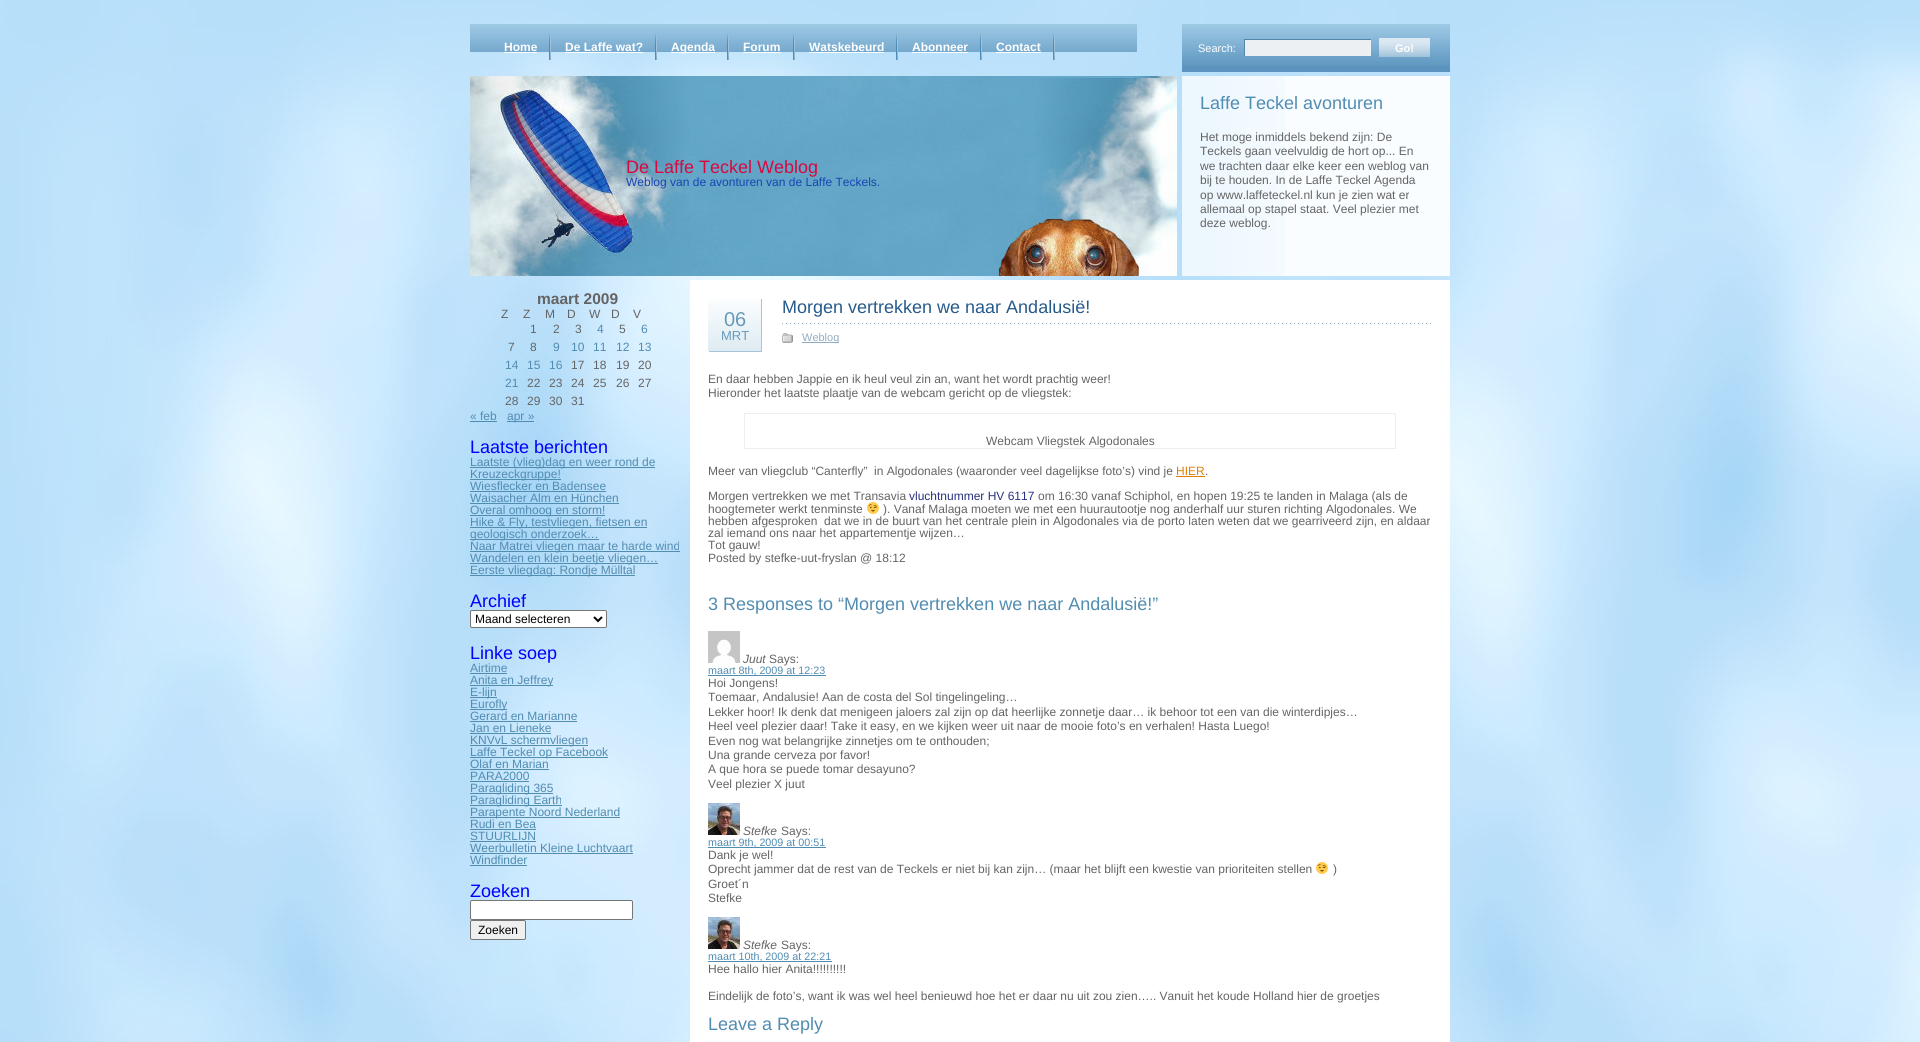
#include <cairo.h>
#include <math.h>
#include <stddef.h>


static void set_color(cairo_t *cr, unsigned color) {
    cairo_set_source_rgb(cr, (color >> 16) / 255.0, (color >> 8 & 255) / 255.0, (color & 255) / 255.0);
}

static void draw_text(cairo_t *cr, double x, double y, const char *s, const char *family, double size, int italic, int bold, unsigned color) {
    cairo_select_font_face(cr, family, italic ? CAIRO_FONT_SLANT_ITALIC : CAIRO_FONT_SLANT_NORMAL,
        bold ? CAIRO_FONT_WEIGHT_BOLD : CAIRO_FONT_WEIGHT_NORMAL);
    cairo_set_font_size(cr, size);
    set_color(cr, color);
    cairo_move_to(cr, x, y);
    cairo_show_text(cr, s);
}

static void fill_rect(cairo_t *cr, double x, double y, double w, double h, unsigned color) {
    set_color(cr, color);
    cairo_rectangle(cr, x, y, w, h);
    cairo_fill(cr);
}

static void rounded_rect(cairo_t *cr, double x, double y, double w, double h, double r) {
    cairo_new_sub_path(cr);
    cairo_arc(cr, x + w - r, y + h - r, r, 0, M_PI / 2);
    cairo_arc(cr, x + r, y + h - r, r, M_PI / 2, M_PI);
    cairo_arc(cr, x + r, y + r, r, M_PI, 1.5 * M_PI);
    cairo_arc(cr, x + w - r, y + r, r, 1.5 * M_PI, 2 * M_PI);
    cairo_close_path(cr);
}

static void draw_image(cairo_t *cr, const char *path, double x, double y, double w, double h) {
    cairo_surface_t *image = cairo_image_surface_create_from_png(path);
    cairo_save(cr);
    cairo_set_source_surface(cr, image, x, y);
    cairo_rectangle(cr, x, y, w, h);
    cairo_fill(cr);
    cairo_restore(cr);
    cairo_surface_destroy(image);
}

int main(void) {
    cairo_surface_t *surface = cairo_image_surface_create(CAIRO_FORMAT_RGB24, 1920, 1042);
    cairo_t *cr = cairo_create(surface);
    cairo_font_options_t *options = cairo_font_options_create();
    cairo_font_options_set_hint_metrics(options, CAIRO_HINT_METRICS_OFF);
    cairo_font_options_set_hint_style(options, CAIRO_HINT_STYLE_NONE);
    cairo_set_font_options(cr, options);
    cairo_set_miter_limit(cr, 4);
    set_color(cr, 0xFFFFFF);
    cairo_paint(cr);
    draw_image(cr, "assets/img1.png", 0, 0, 1920, 1042);
    draw_image(cr, "assets/img2.png", 470, 24, 667, 28);
    draw_image(cr, "assets/img3.png", 549, 34, 2, 26);
    draw_text(cr, 504, 51, "Home", "Liberation Sans", 12, 0, 1, 0xFEFEFE);
    fill_rect(cr, 504, 52, 33, 1, 0xFEFEFE);
    draw_image(cr, "assets/img3.png", 655, 34, 2, 26);
    draw_text(cr, 565, 51, "De Laffe wat?", "Liberation Sans", 12, 0, 1, 0xFEFEFE);
    fill_rect(cr, 565, 52, 78, 1, 0xFEFEFE);
    draw_image(cr, "assets/img3.png", 727, 34, 2, 26);
    fill_rect(cr, 671, 52, 44, 1, 0xFEFEFE);
    draw_text(cr, 671, 51, "Agenda", "Liberation Sans", 12, 0, 1, 0xFEFEFE);
    draw_image(cr, "assets/img3.png", 793, 34, 2, 26);
    draw_text(cr, 743, 51, "Forum", "Liberation Sans", 12, 0, 1, 0xFEFEFE);
    fill_rect(cr, 743, 52, 38, 1, 0xFEFEFE);
    draw_image(cr, "assets/img3.png", 896, 34, 2, 26);
    draw_text(cr, 809, 51, "Watskebeurd", "Liberation Sans", 12, 0, 1, 0xFEFEFE);
    fill_rect(cr, 809, 52, 75, 1, 0xFEFEFE);
    draw_image(cr, "assets/img3.png", 980, 34, 2, 26);
    draw_text(cr, 912, 51, "Abonneer", "Liberation Sans", 12, 0, 1, 0xFEFEFE);
    fill_rect(cr, 912, 52, 56, 1, 0xFEFEFE);
    draw_image(cr, "assets/img3.png", 1053, 34, 2, 26);
    draw_text(cr, 996, 51, "Contact", "Liberation Sans", 12, 0, 1, 0xFEFEFE);
    fill_rect(cr, 996, 52, 45, 1, 0xFEFEFE);
    fill_rect(cr, 1182, 66, 268, 6, 0x5B94BE);
    draw_image(cr, "assets/img4.png", 1182, 24, 268, 42);
    draw_text(cr, 1198, 52, "Search:", "Liberation Sans", 11, 0, 0, 0xFEFEFE);
    fill_rect(cr, 1245, 40, 126, 16, 0xECF0F2);
    fill_rect(cr, 1244, 39, 127, 1, 0x5286AB);
    fill_rect(cr, 1244, 39, 1, 17, 0x5286AB);
    draw_image(cr, "assets/img5.png", 1379, 38, 51, 19);
    draw_text(cr, 1395, 52, "Go!", "Liberation Sans", 11, 0, 1, 0xFEFEFE);
    draw_image(cr, "assets/img6.png", 470, 76, 707, 200);
    draw_text(cr, 626, 173, "De Laffe Teckel Weblog", "Liberation Sans", 18, 0, 0, 0xD9083F);
    draw_text(cr, 626, 186, "Weblog van de avonturen van de Laffe Teckels.", "Liberation Sans", 12, 0, 0, 0x1645B1);
    fill_rect(cr, 1285, 76, 165, 200, 0xF9FDFF);
    draw_image(cr, "assets/img7.png", 1182, 76, 103, 200);
    draw_text(cr, 1200, 109, "Laffe Teckel avonturen", "Liberation Sans", 18, 0, 0, 0x518CB1);
    draw_text(cr, 1200, 141, "Het moge inmiddels bekend zijn: De", "Liberation Sans", 12, 0, 0, 0x646464);
    draw_text(cr, 1200, 155, "Teckels gaan veelvuldig de hort op... En", "Liberation Sans", 12, 0, 0, 0x646464);
    draw_text(cr, 1200, 170, "we trachten daar elke keer een weblog van", "Liberation Sans", 12, 0, 0, 0x646464);
    draw_text(cr, 1200, 184, "bij te houden. In de Laffe Teckel Agenda", "Liberation Sans", 12, 0, 0, 0x646464);
    draw_text(cr, 1200, 199, "op www.laffeteckel.nl kun je zien wat er", "Liberation Sans", 12, 0, 0, 0x646464);
    draw_text(cr, 1200, 213, "allemaal op stapel staat. Veel plezier met", "Liberation Sans", 12, 0, 0, 0x646464);
    draw_text(cr, 1200, 227, "deze weblog.", "Liberation Sans", 12, 0, 0, 0x646464);
    draw_text(cr, 537, 304, "maart 2009", "Liberation Sans", 15.5, 0, 1, 0x646464);
    draw_text(cr, 501, 318, "Z", "Liberation Sans", 12, 0, 0, 0x646464);
    draw_text(cr, 523, 318, "Z", "Liberation Sans", 12, 0, 0, 0x646464);
    draw_text(cr, 545, 318, "M", "Liberation Sans", 12, 0, 0, 0x646464);
    draw_text(cr, 567, 318, "D", "Liberation Sans", 12, 0, 0, 0x646464);
    draw_text(cr, 589, 318, "W", "Liberation Sans", 12, 0, 0, 0x646464);
    draw_text(cr, 611, 318, "D", "Liberation Sans", 12, 0, 0, 0x646464);
    draw_text(cr, 633, 318, "V", "Liberation Sans", 12, 0, 0, 0x646464);
    draw_text(cr, 530, 333, "1", "Liberation Sans", 12, 0, 0, 0x646464);
    draw_text(cr, 553, 333, "2", "Liberation Sans", 12, 0, 0, 0x646464);
    draw_text(cr, 575, 333, "3", "Liberation Sans", 12, 0, 0, 0x646464);
    draw_text(cr, 597, 333, "4", "Liberation Sans", 12, 0, 0, 0x518CB1);
    draw_text(cr, 619, 333, "5", "Liberation Sans", 12, 0, 0, 0x646464);
    draw_text(cr, 641, 333, "6", "Liberation Sans", 12, 0, 0, 0x518CB1);
    draw_text(cr, 508, 351, "7", "Liberation Sans", 12, 0, 0, 0x646464);
    draw_text(cr, 530, 351, "8", "Liberation Sans", 12, 0, 0, 0x646464);
    draw_text(cr, 553, 351, "9", "Liberation Sans", 12, 0, 0, 0x518CB1);
    draw_text(cr, 571, 351, "10", "Liberation Sans", 12, 0, 0, 0x518CB1);
    draw_text(cr, 593, 351, "11", "Liberation Sans", 12, 0, 0, 0x518CB1);
    draw_text(cr, 616, 351, "12", "Liberation Sans", 12, 0, 0, 0x518CB1);
    draw_text(cr, 638, 351, "13", "Liberation Sans", 12, 0, 0, 0x518CB1);
    draw_text(cr, 505, 369, "14", "Liberation Sans", 12, 0, 0, 0x518CB1);
    draw_text(cr, 527, 369, "15", "Liberation Sans", 12, 0, 0, 0x518CB1);
    draw_text(cr, 549, 369, "16", "Liberation Sans", 12, 0, 0, 0x518CB1);
    draw_text(cr, 571, 369, "17", "Liberation Sans", 12, 0, 0, 0x646464);
    draw_text(cr, 593, 369, "18", "Liberation Sans", 12, 0, 0, 0x646464);
    draw_text(cr, 616, 369, "19", "Liberation Sans", 12, 0, 0, 0x646464);
    draw_text(cr, 638, 369, "20", "Liberation Sans", 12, 0, 0, 0x646464);
    draw_text(cr, 505, 387, "21", "Liberation Sans", 12, 0, 0, 0x518CB1);
    draw_text(cr, 527, 387, "22", "Liberation Sans", 12, 0, 0, 0x646464);
    draw_text(cr, 549, 387, "23", "Liberation Sans", 12, 0, 0, 0x646464);
    draw_text(cr, 571, 387, "24", "Liberation Sans", 12, 0, 0, 0x646464);
    draw_text(cr, 593, 387, "25", "Liberation Sans", 12, 0, 0, 0x646464);
    draw_text(cr, 616, 387, "26", "Liberation Sans", 12, 0, 0, 0x646464);
    draw_text(cr, 638, 387, "27", "Liberation Sans", 12, 0, 0, 0x646464);
    draw_text(cr, 505, 405, "28", "Liberation Sans", 12, 0, 0, 0x646464);
    draw_text(cr, 527, 405, "29", "Liberation Sans", 12, 0, 0, 0x646464);
    draw_text(cr, 549, 405, "30", "Liberation Sans", 12, 0, 0, 0x646464);
    draw_text(cr, 571, 405, "31", "Liberation Sans", 12, 0, 0, 0x646464);
    draw_text(cr, 470, 420, "« feb", "Liberation Sans", 12, 0, 0, 0x518CB1);
    fill_rect(cr, 470, 421, 27, 1, 0x518CB1);
    fill_rect(cr, 507, 421, 27, 1, 0x518CB1);
    draw_text(cr, 507, 420, "apr »", "Liberation Sans", 12, 0, 0, 0x518CB1);
    draw_text(cr, 470, 453, "Laatste berichten", "Liberation Sans", 18, 0, 0, 0x0000FF);
    fill_rect(cr, 470, 467, 185, 1, 0x518CB1);
    draw_text(cr, 470, 466, "Laatste (vlieg)dag en weer rond de", "Liberation Sans", 12, 0, 0, 0x518CB1);
    fill_rect(cr, 470, 479, 91, 1, 0x518CB1);
    draw_text(cr, 470, 478, "Kreuzeckgruppe!", "Liberation Sans", 12, 0, 0, 0x518CB1);
    draw_text(cr, 470, 490, "Wiesflecker en Badensee", "Liberation Sans", 12, 0, 0, 0x518CB1);
    fill_rect(cr, 470, 491, 136, 1, 0x518CB1);
    draw_text(cr, 470, 502, "Waisacher Alm en Hünchen", "Liberation Sans", 12, 0, 0, 0x518CB1);
    fill_rect(cr, 470, 503, 149, 1, 0x518CB1);
    fill_rect(cr, 470, 515, 135, 1, 0x518CB1);
    draw_text(cr, 470, 514, "Overal omhoog en storm!", "Liberation Sans", 12, 0, 0, 0x518CB1);
    fill_rect(cr, 470, 527, 177, 1, 0x518CB1);
    draw_text(cr, 470, 526, "Hike & Fly, testvliegen, fietsen en", "Liberation Sans", 12, 0, 0, 0x518CB1);
    fill_rect(cr, 470, 539, 129, 1, 0x518CB1);
    draw_text(cr, 470, 538, "geologisch onderzoek…", "Liberation Sans", 12, 0, 0, 0x518CB1);
    fill_rect(cr, 470, 551, 210, 1, 0x518CB1);
    draw_text(cr, 470, 550, "Naar Matrei vliegen maar te harde wind", "Liberation Sans", 12, 0, 0, 0x518CB1);
    fill_rect(cr, 470, 563, 188, 1, 0x518CB1);
    draw_text(cr, 470, 562, "Wandelen en klein beetje vliegen…", "Liberation Sans", 12, 0, 0, 0x518CB1);
    fill_rect(cr, 470, 575, 165, 1, 0x518CB1);
    draw_text(cr, 470, 574, "Eerste vliegdag: Rondje Mülltal", "Liberation Sans", 12, 0, 0, 0x518CB1);
    draw_text(cr, 470, 607, "Archief", "Liberation Sans", 18, 0, 0, 0x0000FF);
    set_color(cr, 0xFFFFFF);
    rounded_rect(cr, 470.5, 610.5, 136, 17, 1.5);
    cairo_fill_preserve(cr);
    set_color(cr, 0x767676);
    cairo_set_line_width(cr, 1);
    cairo_stroke(cr);
    cairo_new_path(cr);
    cairo_move_to(cr, 594, 617);
    cairo_line_to(cr, 598, 621);
    cairo_line_to(cr, 602, 617);
    set_color(cr, 0x000000);
    cairo_set_line_width(cr, 2);
    cairo_stroke(cr);
    draw_text(cr, 475, 623, "Maand selecteren", "Liberation Sans", 12, 0, 0, 0x000000);
    draw_text(cr, 470, 659, "Linke soep", "Liberation Sans", 18, 0, 0, 0x0000FF);
    draw_text(cr, 470, 672, "Airtime", "Liberation Sans", 12, 0, 0, 0x518CB1);
    fill_rect(cr, 470, 673, 37, 1, 0x518CB1);
    fill_rect(cr, 470, 685, 83, 1, 0x518CB1);
    draw_text(cr, 470, 684, "Anita en Jeffrey", "Liberation Sans", 12, 0, 0, 0x518CB1);
    fill_rect(cr, 470, 697, 27, 1, 0x518CB1);
    draw_text(cr, 470, 696, "E-lijn", "Liberation Sans", 12, 0, 0, 0x518CB1);
    fill_rect(cr, 470, 709, 37, 1, 0x518CB1);
    draw_text(cr, 470, 708, "Eurofly", "Liberation Sans", 12, 0, 0, 0x518CB1);
    draw_text(cr, 470, 720, "Gerard en Marianne", "Liberation Sans", 12, 0, 0, 0x518CB1);
    fill_rect(cr, 470, 721, 107, 1, 0x518CB1);
    draw_text(cr, 470, 732, "Jan en Lieneke", "Liberation Sans", 12, 0, 0, 0x518CB1);
    fill_rect(cr, 470, 733, 81, 1, 0x518CB1);
    fill_rect(cr, 470, 745, 118, 1, 0x518CB1);
    draw_text(cr, 470, 744, "KNVvL schermvliegen", "Liberation Sans", 12, 0, 0, 0x518CB1);
    fill_rect(cr, 470, 757, 138, 1, 0x518CB1);
    draw_text(cr, 470, 756, "Laffe Teckel op Facebook", "Liberation Sans", 12, 0, 0, 0x518CB1);
    draw_text(cr, 470, 768, "Olaf en Marian", "Liberation Sans", 12, 0, 0, 0x518CB1);
    fill_rect(cr, 470, 769, 79, 1, 0x518CB1);
    draw_text(cr, 470, 780, "PARA2000", "Liberation Sans", 12, 0, 0, 0x518CB1);
    fill_rect(cr, 470, 781, 59, 1, 0x518CB1);
    fill_rect(cr, 470, 793, 83, 1, 0x518CB1);
    draw_text(cr, 470, 792, "Paragliding 365", "Liberation Sans", 12, 0, 0, 0x518CB1);
    fill_rect(cr, 470, 805, 92, 1, 0x518CB1);
    draw_text(cr, 470, 804, "Paragliding Earth", "Liberation Sans", 12, 0, 0, 0x518CB1);
    fill_rect(cr, 470, 817, 150, 1, 0x518CB1);
    draw_text(cr, 470, 816, "Parapente Noord Nederland", "Liberation Sans", 12, 0, 0, 0x518CB1);
    draw_text(cr, 470, 828, "Rudi en Bea", "Liberation Sans", 12, 0, 0, 0x518CB1);
    fill_rect(cr, 470, 829, 66, 1, 0x518CB1);
    draw_text(cr, 470, 840, "STUURLIJN", "Liberation Sans", 12, 0, 0, 0x518CB1);
    fill_rect(cr, 470, 841, 66, 1, 0x518CB1);
    draw_text(cr, 470, 852, "Weerbulletin Kleine Luchtvaart", "Liberation Sans", 12, 0, 0, 0x518CB1);
    fill_rect(cr, 470, 853, 163, 1, 0x518CB1);
    draw_text(cr, 470, 864, "Windfinder", "Liberation Sans", 12, 0, 0, 0x518CB1);
    fill_rect(cr, 470, 865, 57, 1, 0x518CB1);
    draw_text(cr, 470, 897, "Zoeken", "Liberation Sans", 18, 0, 0, 0x0000FF);
    set_color(cr, 0xFFFFFF);
    rounded_rect(cr, 470.5, 900.5, 162, 19, 1.5);
    cairo_fill_preserve(cr);
    set_color(cr, 0x767676);
    cairo_set_line_width(cr, 1);
    cairo_stroke(cr);
    set_color(cr, 0xEFEFEF);
    rounded_rect(cr, 470.5, 920.5, 55, 19, 1.5);
    cairo_fill_preserve(cr);
    set_color(cr, 0x767676);
    cairo_stroke(cr);
    draw_text(cr, 478, 934, "Zoeken", "Liberation Sans", 12, 0, 0, 0x000000);
    fill_rect(cr, 690, 280, 760, 762, 0xFFFFFF);
    draw_image(cr, "assets/img8.png", 782, 323, 649, 1);
    draw_text(cr, 782, 313, "Morgen vertrekken we naar Andalusië!", "Liberation Sans", 18, 0, 0, 0x265A8B);
    draw_image(cr, "assets/img9.png", 708, 299, 54, 53);
    draw_text(cr, 724, 326, "06", "Liberation Sans", 20, 0, 0, 0x669ABB);
    draw_text(cr, 721, 340, "MRT", "Liberation Sans", 13, 0, 0, 0x669ABB);
    draw_image(cr, "assets/img10.png", 782, 333, 11, 10);
    fill_rect(cr, 802, 342, 37, 1, 0x91ADC1);
    draw_text(cr, 802, 341, "Weblog", "Liberation Sans", 11, 0, 0, 0x91ADC1);
    draw_text(cr, 708, 383, "En daar hebben Jappie en ik heul veul zin an, want het wordt prachtig weer!", "Liberation Sans", 12, 0, 0, 0x646464);
    draw_text(cr, 708, 397, "Hieronder het laatste plaatje van de webcam gericht op de vliegstek:", "Liberation Sans", 12, 0, 0, 0x646464);
    cairo_rectangle(cr, 744.5, 413.5, 651, 35);
    set_color(cr, 0xEEEEEE);
    cairo_stroke(cr);
    draw_text(cr, 986, 445, "Webcam Vliegstek Algodonales", "Liberation Sans", 12, 0, 0, 0x646464);
    draw_text(cr, 708, 475, "Meer van vliegclub “Canterfly”  in Algodonales (waaronder veel dagelijkse foto’s) vind je", "Liberation Sans", 12, 0, 0, 0x646464);
    draw_text(cr, 1176, 475, "HIER", "Liberation Sans", 12, 0, 0, 0xE08105);
    fill_rect(cr, 1176, 476, 29, 1, 0xE08105);
    draw_text(cr, 1205, 475, ".", "Liberation Sans", 12, 0, 0, 0x646464);
    draw_text(cr, 708, 500, "Morgen vertrekken we met Transavia", "Liberation Sans", 12, 0, 0, 0x646464);
    draw_text(cr, 909, 500, "vluchtnummer HV 6117", "Liberation Sans", 12, 0, 0, 0x26327E);
    draw_text(cr, 1038, 500, "om 16:30 vanaf Schiphol, en hopen 19:25 te landen in Malaga (als de", "Liberation Sans", 12, 0, 0, 0x646464);
    draw_text(cr, 708, 513, "hoogtemeter werkt tenminste", "Liberation Sans", 12, 0, 0, 0x646464);
    draw_image(cr, "assets/img11.png", 867, 502, 12, 12);
    draw_text(cr, 883, 513, "). Vanaf Malaga moeten we met een huurautootje nog anderhalf uur sturen richting Algodonales. We", "Liberation Sans", 12, 0, 0, 0x646464);
    draw_text(cr, 708, 525, "hebben afgesproken  dat we in de buurt van het centrale plein in Algodonales via de porto laten weten dat we gearriveerd zijn, en aldaar", "Liberation Sans", 12, 0, 0, 0x646464);
    draw_text(cr, 708, 537, "zal iemand ons naar het appartementje wijzen…", "Liberation Sans", 12, 0, 0, 0x646464);
    draw_text(cr, 708, 549, "Tot gauw!", "Liberation Sans", 12, 0, 0, 0x646464);
    draw_text(cr, 708, 562, "Posted by stefke-uut-fryslan @ 18:12", "Liberation Sans", 12, 0, 0, 0x646464);
    draw_text(cr, 708, 610, "3 Responses to “Morgen vertrekken we naar Andalusië!”", "Liberation Sans", 18, 0, 0, 0x518CB1);
    draw_image(cr, "assets/img12.png", 708, 631, 32, 32);
    draw_text(cr, 743, 663, "Juut", "Liberation Sans", 12, 1, 0, 0x646464);
    draw_text(cr, 769, 663, "Says:", "Liberation Sans", 12, 0, 0, 0x646464);
    fill_rect(cr, 708, 675, 118, 1, 0x518CB1);
    draw_text(cr, 708, 674, "maart 8th, 2009 at 12:23", "Liberation Sans", 10.75, 0, 0, 0x518CB1);
    draw_text(cr, 708, 687, "Hoi Jongens!", "Liberation Sans", 12, 0, 0, 0x646464);
    draw_text(cr, 708, 701, "Toemaar, Andalusie! Aan de costa del Sol tingelingeling…", "Liberation Sans", 12, 0, 0, 0x646464);
    draw_text(cr, 708, 716, "Lekker hoor! Ik denk dat menigeen jaloers zal zijn op dat heerlijke zonnetje daar… ik behoor tot een van die winterdipjes…", "Liberation Sans", 12, 0, 0, 0x646464);
    draw_text(cr, 708, 730, "Heel veel plezier daar! Take it easy, en we kijken weer uit naar de mooie foto’s en verhalen! Hasta Luego!", "Liberation Sans", 12, 0, 0, 0x646464);
    draw_text(cr, 708, 745, "Even nog wat belangrijke zinnetjes om te onthouden;", "Liberation Sans", 12, 0, 0, 0x646464);
    draw_text(cr, 708, 759, "Una grande cerveza por favor!", "Liberation Sans", 12, 0, 0, 0x646464);
    draw_text(cr, 708, 773, "A que hora se puede tomar desayuno?", "Liberation Sans", 12, 0, 0, 0x646464);
    draw_text(cr, 708, 788, "Veel plezier X juut", "Liberation Sans", 12, 0, 0, 0x646464);
    draw_image(cr, "assets/img13.png", 708, 803, 32, 32);
    draw_text(cr, 743, 835, "Stefke", "Liberation Sans", 12, 1, 0, 0x646464);
    draw_text(cr, 781, 835, "Says:", "Liberation Sans", 12, 0, 0, 0x646464);
    fill_rect(cr, 708, 847, 118, 1, 0x518CB1);
    draw_text(cr, 708, 846, "maart 9th, 2009 at 00:51", "Liberation Sans", 10.75, 0, 0, 0x518CB1);
    draw_text(cr, 708, 859, "Dank je wel!", "Liberation Sans", 12, 0, 0, 0x646464);
    draw_text(cr, 708, 873, "Oprecht jammer dat de rest van de Teckels er niet bij kan zijn… (maar het blijft een kwestie van prioriteiten stellen", "Liberation Sans", 12, 0, 0, 0x646464);
    draw_image(cr, "assets/img11.png", 1316, 862, 12, 12);
    draw_text(cr, 1333, 873, ")", "Liberation Sans", 12, 0, 0, 0x646464);
    draw_text(cr, 708, 888, "Groet´n", "Liberation Sans", 12, 0, 0, 0x646464);
    draw_text(cr, 708, 902, "Stefke", "Liberation Sans", 12, 0, 0, 0x646464);
    draw_image(cr, "assets/img13.png", 708, 917, 32, 32);
    draw_text(cr, 743, 949, "Stefke", "Liberation Sans", 12, 1, 0, 0x646464);
    draw_text(cr, 781, 949, "Says:", "Liberation Sans", 12, 0, 0, 0x646464);
    fill_rect(cr, 708, 961, 124, 1, 0x518CB1);
    draw_text(cr, 708, 960, "maart 10th, 2009 at 22:21", "Liberation Sans", 10.75, 0, 0, 0x518CB1);
    draw_text(cr, 708, 973, "Hee hallo hier Anita!!!!!!!!!!", "Liberation Sans", 12, 0, 0, 0x646464);
    draw_text(cr, 708, 1000, "Eindelijk de foto’s, want ik was wel heel benieuwd hoe het er daar nu uit zou zien….. Vanuit het koude Holland hier de groetjes", "Liberation Sans", 12, 0, 0, 0x646464);
    draw_text(cr, 708, 1030, "Leave a Reply", "Liberation Sans", 18, 0, 0, 0x518CB1);
    cairo_surface_write_to_png(surface, "output.png");
    cairo_font_options_destroy(options);
    cairo_destroy(cr);
    cairo_surface_destroy(surface);
    return 0;
}
